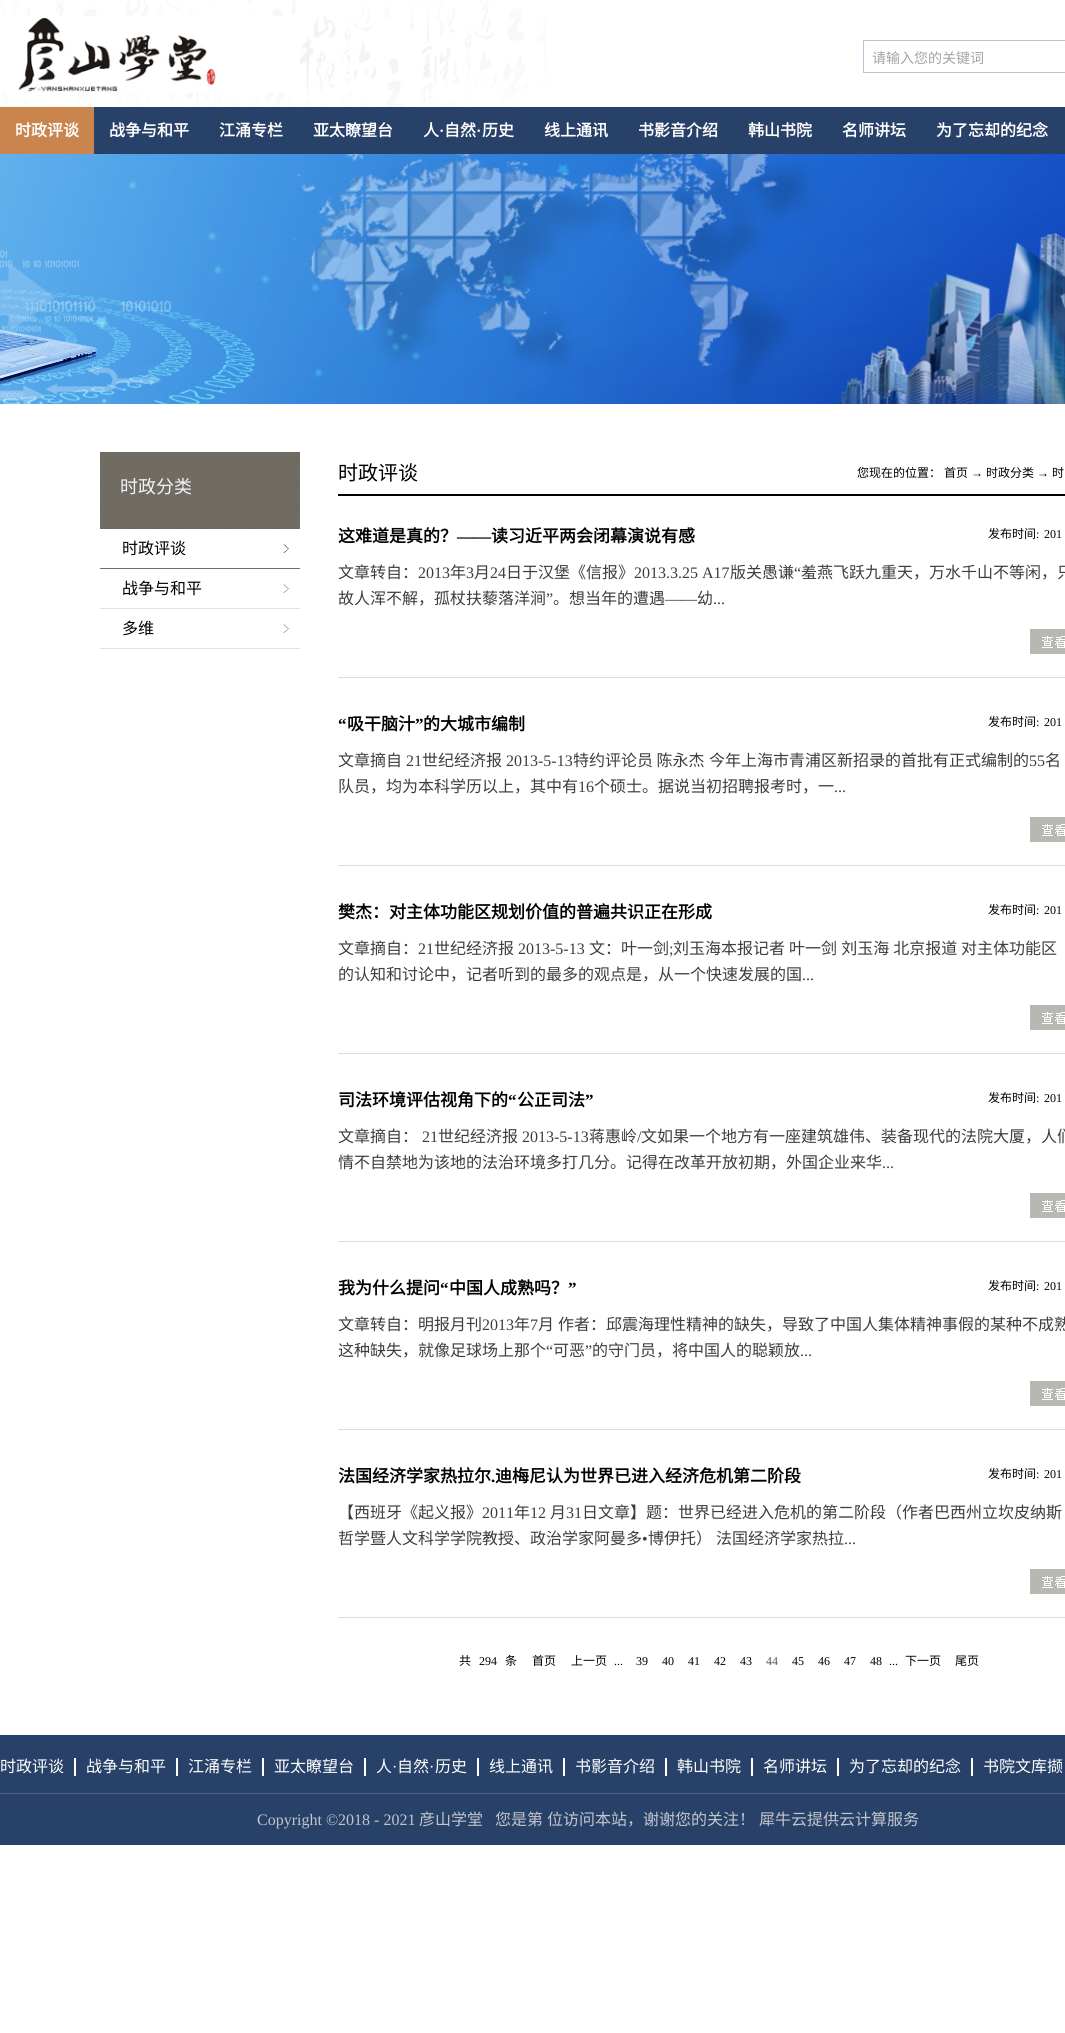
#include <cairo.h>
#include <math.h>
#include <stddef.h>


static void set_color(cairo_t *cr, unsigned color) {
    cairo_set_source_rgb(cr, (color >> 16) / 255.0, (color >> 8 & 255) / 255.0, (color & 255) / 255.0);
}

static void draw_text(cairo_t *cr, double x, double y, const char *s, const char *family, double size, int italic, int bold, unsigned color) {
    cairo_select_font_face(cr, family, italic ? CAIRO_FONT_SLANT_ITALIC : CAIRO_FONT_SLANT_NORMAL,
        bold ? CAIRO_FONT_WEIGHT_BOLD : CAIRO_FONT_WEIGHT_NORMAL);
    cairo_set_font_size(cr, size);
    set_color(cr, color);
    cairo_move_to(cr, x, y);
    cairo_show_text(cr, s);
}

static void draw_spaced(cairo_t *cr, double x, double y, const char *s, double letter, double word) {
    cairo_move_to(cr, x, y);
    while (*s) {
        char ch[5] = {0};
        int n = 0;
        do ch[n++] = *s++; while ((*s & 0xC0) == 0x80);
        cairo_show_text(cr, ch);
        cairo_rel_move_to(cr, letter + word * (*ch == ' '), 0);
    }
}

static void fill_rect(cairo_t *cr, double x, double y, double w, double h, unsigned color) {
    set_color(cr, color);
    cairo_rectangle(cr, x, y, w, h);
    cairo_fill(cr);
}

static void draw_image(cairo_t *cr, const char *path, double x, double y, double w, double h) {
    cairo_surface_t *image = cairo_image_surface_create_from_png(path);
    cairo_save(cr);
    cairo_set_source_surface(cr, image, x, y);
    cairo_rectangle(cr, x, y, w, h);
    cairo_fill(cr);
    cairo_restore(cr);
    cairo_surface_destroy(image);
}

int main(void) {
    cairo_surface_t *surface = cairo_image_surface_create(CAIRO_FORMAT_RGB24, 1065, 2033);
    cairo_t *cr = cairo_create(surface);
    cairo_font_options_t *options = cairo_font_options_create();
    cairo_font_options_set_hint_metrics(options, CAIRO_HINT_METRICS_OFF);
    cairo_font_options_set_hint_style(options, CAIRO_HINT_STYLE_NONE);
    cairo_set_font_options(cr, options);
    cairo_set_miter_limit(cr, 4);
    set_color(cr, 0xFFFFFF);
    cairo_paint(cr);
    draw_image(cr, "assets/img1.png", 0, 0, 546, 107);
    draw_image(cr, "assets/img2.png", 0, 16, 300, 77);
    fill_rect(cr, 863, 40, 202, 1, 0xB5C4D8);
    fill_rect(cr, 863, 72, 202, 1, 0xB5C4D8);
    fill_rect(cr, 863, 40, 1, 33, 0xB5C4D8);
    draw_text(cr, 872, 63, "请输入您的关键词", "Noto Sans CJK SC", 14, 0, 0, 0xA3A3A3);
    fill_rect(cr, 94, 107, 971, 47, 0x284168);
    fill_rect(cr, 0, 107, 94, 47, 0xCA854E);
    draw_text(cr, 15, 136, "时政评谈", "Noto Sans CJK SC", 16, 0, 1, 0xFFFFFF);
    draw_text(cr, 109, 136, "战争与和平", "Noto Sans CJK SC", 16, 0, 1, 0xFFFFFF);
    draw_text(cr, 219, 136, "江涌专栏", "Noto Sans CJK SC", 16, 0, 1, 0xFFFFFF);
    draw_text(cr, 313, 136, "亚太瞭望台", "Noto Sans CJK SC", 16, 0, 1, 0xFFFFFF);
    draw_text(cr, 423, 136, "人", "Noto Sans CJK SC", 16, 0, 1, 0xFFFFFF);
    draw_text(cr, 439, 136, "·", "Liberation Serif", 16, 0, 1, 0xFFFFFF);
    draw_text(cr, 444, 136, "自然", "Noto Sans CJK SC", 16, 0, 1, 0xFFFFFF);
    draw_text(cr, 476, 136, "·", "Liberation Serif", 16, 0, 1, 0xFFFFFF);
    draw_text(cr, 482, 136, "历史", "Noto Sans CJK SC", 16, 0, 1, 0xFFFFFF);
    draw_text(cr, 544, 136, "线上通讯", "Noto Sans CJK SC", 16, 0, 1, 0xFFFFFF);
    draw_text(cr, 638, 136, "书影音介绍", "Noto Sans CJK SC", 16, 0, 1, 0xFFFFFF);
    draw_text(cr, 748, 136, "韩山书院", "Noto Sans CJK SC", 16, 0, 1, 0xFFFFFF);
    draw_text(cr, 842, 136, "名师讲坛", "Noto Sans CJK SC", 16, 0, 1, 0xFFFFFF);
    draw_text(cr, 936, 136, "为了忘却的纪念", "Noto Sans CJK SC", 16, 0, 1, 0xFFFFFF);
    draw_image(cr, "assets/img3.png", 0, 154, 1065, 250);
    draw_image(cr, "assets/img4.png", 100, 452, 200, 77);
    draw_text(cr, 120, 493, "时政分类", "Noto Sans CJK SC", 18, 0, 0, 0xF2F3F7);
    draw_image(cr, "assets/img5.png", 100, 544, 200, 25);
    draw_text(cr, 122, 554, "时政评谈", "Noto Sans CJK SC", 16, 0, 0, 0x000000);
    draw_image(cr, "assets/img6.png", 100, 584, 200, 25);
    draw_text(cr, 122, 594, "战争与和平", "Noto Sans CJK SC", 16, 0, 0, 0x000000);
    draw_image(cr, "assets/img6.png", 100, 624, 200, 25);
    draw_text(cr, 122, 634, "多维", "Noto Sans CJK SC", 16, 0, 0, 0x000000);
    fill_rect(cr, 338, 494, 727, 2, 0x000000);
    draw_text(cr, 338, 480, "时政评谈", "Noto Sans CJK SC", 20, 0, 0, 0x000000);
    draw_text(cr, 857, 477, "您现在的位置：", "Noto Sans CJK SC", 12, 0, 0, 0x000000);
    draw_text(cr, 944, 477, "首页", "Noto Sans CJK SC", 12, 0, 0, 0x000000);
    draw_text(cr, 971, 477, "→", "Liberation Serif", 12, 0, 0, 0x000000);
    draw_text(cr, 986, 477, "时政分类", "Noto Sans CJK SC", 12, 0, 0, 0x000000);
    draw_text(cr, 1037, 477, "→", "Liberation Serif", 12, 0, 0, 0x000000);
    draw_text(cr, 1052, 477, "时", "Noto Sans CJK SC", 12, 0, 0, 0x000000);
    fill_rect(cr, 338, 677, 727, 1, 0xDCDCDC);
    draw_text(cr, 338, 542, "这难道是真的？", "Noto Sans CJK SC", 17, 0, 1, 0x000000);
    draw_text(cr, 457, 542, "——", "Liberation Serif", 17, 0, 1, 0x000000);
    draw_text(cr, 491, 542, "读习近平两会闭幕演说有感", "Noto Sans CJK SC", 17, 0, 1, 0x000000);
    draw_text(cr, 988, 538, "发布时间", "Noto Sans CJK SC", 12, 0, 0, 0x000000);
    draw_text(cr, 1036, 538, ":", "Liberation Serif", 12, 0, 0, 0x000000);
    draw_text(cr, 1044, 538, "201", "Liberation Serif", 12, 0, 0, 0x000000);
    draw_text(cr, 338, 578, "文章转自：", "Noto Sans CJK SC", 16, 0, 0, 0x3D3D3D);
    draw_text(cr, 418, 578, "2013", "Liberation Serif", 16, 0, 0, 0x3D3D3D);
    draw_text(cr, 450, 578, "年", "Noto Sans CJK SC", 16, 0, 0, 0x3D3D3D);
    draw_text(cr, 466, 578, "3", "Liberation Serif", 16, 0, 0, 0x3D3D3D);
    draw_text(cr, 474, 578, "月", "Noto Sans CJK SC", 16, 0, 0, 0x3D3D3D);
    draw_text(cr, 490, 578, "24", "Liberation Serif", 16, 0, 0, 0x3D3D3D);
    draw_text(cr, 506, 578, "日于汉堡《信报》", "Noto Sans CJK SC", 16, 0, 0, 0x3D3D3D);
    draw_text(cr, 634, 578, "2013.3.25 A17", "Liberation Serif", 16, 0, 0, 0x3D3D3D);
    draw_text(cr, 730, 578, "版关愚谦", "Noto Sans CJK SC", 16, 0, 0, 0x3D3D3D);
    draw_text(cr, 794, 578, "“", "Liberation Serif", 16, 0, 0, 0x3D3D3D);
    draw_text(cr, 801, 578, "羞燕飞跃九重天，万水千山不等闲，只", "Noto Sans CJK SC", 16, 0, 0, 0x3D3D3D);
    draw_text(cr, 338, 604, "故人浑不解，孤杖扶藜落洋涧", "Noto Sans CJK SC", 16, 0, 0, 0x3D3D3D);
    draw_text(cr, 546, 604, "”", "Liberation Serif", 16, 0, 0, 0x3D3D3D);
    draw_text(cr, 553, 604, "。想当年的遭遇", "Noto Sans CJK SC", 16, 0, 0, 0x3D3D3D);
    draw_text(cr, 665, 604, "——", "Liberation Serif", 16, 0, 0, 0x3D3D3D);
    draw_text(cr, 697, 604, "幼", "Noto Sans CJK SC", 16, 0, 0, 0x3D3D3D);
    draw_text(cr, 713, 604, "...", "Liberation Serif", 16, 0, 0, 0x3D3D3D);
    draw_image(cr, "assets/img7.png", 1030, 629, 35, 25);
    fill_rect(cr, 338, 865, 727, 1, 0xDCDCDC);
    draw_text(cr, 338, 730, "“", "Liberation Serif", 17, 0, 1, 0x000000);
    draw_text(cr, 347, 730, "吸干脑汁", "Noto Sans CJK SC", 17, 0, 1, 0x000000);
    draw_text(cr, 415, 730, "”", "Liberation Serif", 17, 0, 1, 0x000000);
    draw_text(cr, 423, 730, "的大城市编制", "Noto Sans CJK SC", 17, 0, 1, 0x000000);
    draw_text(cr, 988, 726, "发布时间", "Noto Sans CJK SC", 12, 0, 0, 0x000000);
    draw_text(cr, 1036, 726, ":", "Liberation Serif", 12, 0, 0, 0x000000);
    draw_text(cr, 1044, 726, "201", "Liberation Serif", 12, 0, 0, 0x000000);
    draw_text(cr, 338, 766, "文章摘自", "Noto Sans CJK SC", 16, 0, 0, 0x3D3D3D);
    draw_text(cr, 406, 766, "21", "Liberation Serif", 16, 0, 0, 0x3D3D3D);
    draw_text(cr, 422, 766, "世纪经济报", "Noto Sans CJK SC", 16, 0, 0, 0x3D3D3D);
    draw_text(cr, 506, 766, "2013-5-13", "Liberation Serif", 16, 0, 0, 0x3D3D3D);
    draw_text(cr, 573, 766, "特约评论员 陈永杰", "Noto Sans CJK SC", 16, 0, 0, 0x3D3D3D);
    draw_text(cr, 709, 766, "今年上海市青浦区新招录的首批有正式编制的", "Noto Sans CJK SC", 16, 0, 0, 0x3D3D3D);
    draw_text(cr, 1029, 766, "55", "Liberation Serif", 16, 0, 0, 0x3D3D3D);
    draw_text(cr, 1045, 766, "名", "Noto Sans CJK SC", 16, 0, 0, 0x3D3D3D);
    draw_text(cr, 338, 792, "队员，均为本科学历以上，其中有", "Noto Sans CJK SC", 16, 0, 0, 0x3D3D3D);
    draw_text(cr, 578, 792, "16", "Liberation Serif", 16, 0, 0, 0x3D3D3D);
    draw_text(cr, 594, 792, "个硕士。据说当初招聘报考时，一", "Noto Sans CJK SC", 16, 0, 0, 0x3D3D3D);
    draw_text(cr, 834, 792, "...", "Liberation Serif", 16, 0, 0, 0x3D3D3D);
    draw_image(cr, "assets/img7.png", 1030, 817, 35, 25);
    fill_rect(cr, 338, 1053, 727, 1, 0xDCDCDC);
    draw_text(cr, 338, 918, "樊杰：对主体功能区规划价值的普遍共识正在形成", "Noto Sans CJK SC", 17, 0, 1, 0x000000);
    draw_text(cr, 988, 914, "发布时间", "Noto Sans CJK SC", 12, 0, 0, 0x000000);
    draw_text(cr, 1036, 914, ":", "Liberation Serif", 12, 0, 0, 0x000000);
    draw_text(cr, 1044, 914, "201", "Liberation Serif", 12, 0, 0, 0x000000);
    draw_text(cr, 338, 954, "文章摘自：", "Noto Sans CJK SC", 16, 0, 0, 0x3D3D3D);
    draw_text(cr, 418, 954, "21", "Liberation Serif", 16, 0, 0, 0x3D3D3D);
    draw_text(cr, 434, 954, "世纪经济报", "Noto Sans CJK SC", 16, 0, 0, 0x3D3D3D);
    draw_text(cr, 518, 954, "2013-5-13", "Liberation Serif", 16, 0, 0, 0x3D3D3D);
    draw_text(cr, 589, 954, "文：叶一剑", "Noto Sans CJK SC", 16, 0, 0, 0x3D3D3D);
    draw_text(cr, 669, 954, ";", "Liberation Serif", 16, 0, 0, 0x3D3D3D);
    cairo_select_font_face(cr, "Noto Sans CJK SC", CAIRO_FONT_SLANT_NORMAL, CAIRO_FONT_WEIGHT_NORMAL);
    draw_spaced(cr, 673, 954, "刘玉海本报记者 叶一剑 刘玉海 北京报道", 0, 0.5);
    draw_text(cr, 961, 954, "对主体功能区", "Noto Sans CJK SC", 16, 0, 0, 0x3D3D3D);
    draw_text(cr, 338, 980, "的认知和讨论中，记者听到的最多的观点是，从一个快速发展的国", "Noto Sans CJK SC", 16, 0, 0, 0x3D3D3D);
    draw_text(cr, 802, 980, "...", "Liberation Serif", 16, 0, 0, 0x3D3D3D);
    draw_image(cr, "assets/img7.png", 1030, 1005, 35, 25);
    fill_rect(cr, 338, 1241, 727, 1, 0xDCDCDC);
    draw_text(cr, 338, 1106, "司法环境评估视角下的", "Noto Sans CJK SC", 17, 0, 1, 0x000000);
    draw_text(cr, 508, 1106, "“", "Liberation Serif", 17, 0, 1, 0x000000);
    draw_text(cr, 517, 1106, "公正司法", "Noto Sans CJK SC", 17, 0, 1, 0x000000);
    draw_text(cr, 585, 1106, "”", "Liberation Serif", 17, 0, 1, 0x000000);
    draw_text(cr, 988, 1102, "发布时间", "Noto Sans CJK SC", 12, 0, 0, 0x000000);
    draw_text(cr, 1036, 1102, ":", "Liberation Serif", 12, 0, 0, 0x000000);
    draw_text(cr, 1044, 1102, "201", "Liberation Serif", 12, 0, 0, 0x000000);
    draw_text(cr, 338, 1142, "文章摘自：", "Noto Sans CJK SC", 16, 0, 0, 0x3D3D3D);
    draw_text(cr, 422, 1142, "21", "Liberation Serif", 16, 0, 0, 0x3D3D3D);
    draw_text(cr, 438, 1142, "世纪经济报", "Noto Sans CJK SC", 16, 0, 0, 0x3D3D3D);
    draw_text(cr, 522, 1142, "2013-5-13", "Liberation Serif", 16, 0, 0, 0x3D3D3D);
    draw_text(cr, 589, 1142, "蒋惠岭", "Noto Sans CJK SC", 16, 0, 0, 0x3D3D3D);
    draw_text(cr, 637, 1142, "/", "Liberation Serif", 16, 0, 0, 0x3D3D3D);
    draw_text(cr, 641, 1142, "文如果一个地方有一座建筑雄伟、装备现代的法院大厦，人们", "Noto Sans CJK SC", 16, 0, 0, 0x3D3D3D);
    draw_text(cr, 338, 1168, "情不自禁地为该地的法治环境多打几分。记得在改革开放初期，外国企业来华", "Noto Sans CJK SC", 16, 0, 0, 0x3D3D3D);
    draw_text(cr, 882, 1168, "...", "Liberation Serif", 16, 0, 0, 0x3D3D3D);
    draw_image(cr, "assets/img7.png", 1030, 1193, 35, 25);
    fill_rect(cr, 338, 1429, 727, 1, 0xDCDCDC);
    draw_text(cr, 338, 1294, "我为什么提问", "Noto Sans CJK SC", 17, 0, 1, 0x000000);
    draw_text(cr, 440, 1294, "“", "Liberation Serif", 17, 0, 1, 0x000000);
    draw_text(cr, 449, 1294, "中国人成熟吗？", "Noto Sans CJK SC", 17, 0, 1, 0x000000);
    draw_text(cr, 568, 1294, "”", "Liberation Serif", 17, 0, 1, 0x000000);
    draw_text(cr, 988, 1290, "发布时间", "Noto Sans CJK SC", 12, 0, 0, 0x000000);
    draw_text(cr, 1036, 1290, ":", "Liberation Serif", 12, 0, 0, 0x000000);
    draw_text(cr, 1044, 1290, "201", "Liberation Serif", 12, 0, 0, 0x000000);
    draw_text(cr, 338, 1330, "文章转自：明报月刊", "Noto Sans CJK SC", 16, 0, 0, 0x3D3D3D);
    draw_text(cr, 482, 1330, "2013", "Liberation Serif", 16, 0, 0, 0x3D3D3D);
    draw_text(cr, 514, 1330, "年", "Noto Sans CJK SC", 16, 0, 0, 0x3D3D3D);
    draw_text(cr, 530, 1330, "7", "Liberation Serif", 16, 0, 0, 0x3D3D3D);
    cairo_select_font_face(cr, "Noto Sans CJK SC", CAIRO_FONT_SLANT_NORMAL, CAIRO_FONT_WEIGHT_NORMAL);
    draw_spaced(cr, 538, 1330, "月 作者：邱震海理性精神的缺失，导致了中国人集体精神事假的某种不成熟", 0, 0.5);
    draw_text(cr, 338, 1356, "这种缺失，就像足球场上那个", "Noto Sans CJK SC", 16, 0, 0, 0x3D3D3D);
    draw_text(cr, 546, 1356, "“", "Liberation Serif", 16, 0, 0, 0x3D3D3D);
    draw_text(cr, 553, 1356, "可恶", "Noto Sans CJK SC", 16, 0, 0, 0x3D3D3D);
    draw_text(cr, 585, 1356, "”", "Liberation Serif", 16, 0, 0, 0x3D3D3D);
    draw_text(cr, 592, 1356, "的守门员，将中国人的聪颖放", "Noto Sans CJK SC", 16, 0, 0, 0x3D3D3D);
    draw_text(cr, 800, 1356, "...", "Liberation Serif", 16, 0, 0, 0x3D3D3D);
    draw_image(cr, "assets/img7.png", 1030, 1381, 35, 25);
    fill_rect(cr, 338, 1617, 727, 1, 0xDCDCDC);
    draw_text(cr, 338, 1482, "法国经济学家热拉尔", "Noto Sans CJK SC", 17, 0, 1, 0x000000);
    draw_text(cr, 491, 1482, ".", "Liberation Serif", 17, 0, 1, 0x000000);
    draw_text(cr, 495, 1482, "迪梅尼认为世界已进入经济危机第二阶段", "Noto Sans CJK SC", 17, 0, 1, 0x000000);
    draw_text(cr, 988, 1478, "发布时间", "Noto Sans CJK SC", 12, 0, 0, 0x000000);
    draw_text(cr, 1036, 1478, ":", "Liberation Serif", 12, 0, 0, 0x000000);
    draw_text(cr, 1044, 1478, "201", "Liberation Serif", 12, 0, 0, 0x000000);
    draw_text(cr, 338, 1518, "【西班牙《起义报》", "Noto Sans CJK SC", 16, 0, 0, 0x3D3D3D);
    draw_text(cr, 482, 1518, "2011", "Liberation Serif", 16, 0, 0, 0x3D3D3D);
    draw_text(cr, 514, 1518, "年", "Noto Sans CJK SC", 16, 0, 0, 0x3D3D3D);
    draw_text(cr, 530, 1518, "12", "Liberation Serif", 16, 0, 0, 0x3D3D3D);
    draw_text(cr, 550, 1518, "月", "Noto Sans CJK SC", 16, 0, 0, 0x3D3D3D);
    draw_text(cr, 566, 1518, "31", "Liberation Serif", 16, 0, 0, 0x3D3D3D);
    draw_text(cr, 582, 1518, "日文章】题：世界已经进入危机的第二阶段（作者巴西州立坎皮纳斯", "Noto Sans CJK SC", 16, 0, 0, 0x3D3D3D);
    draw_text(cr, 338, 1544, "哲学暨人文科学学院教授、政治学家阿曼多", "Noto Sans CJK SC", 16, 0, 0, 0x3D3D3D);
    draw_text(cr, 642, 1544, "•", "Liberation Serif", 16, 0, 0, 0x3D3D3D);
    cairo_select_font_face(cr, "Noto Sans CJK SC", CAIRO_FONT_SLANT_NORMAL, CAIRO_FONT_WEIGHT_NORMAL);
    draw_spaced(cr, 648, 1544, "博伊托） 法国经济学家热拉", 0, 0.5);
    draw_text(cr, 844, 1544, "...", "Liberation Serif", 16, 0, 0, 0x3D3D3D);
    draw_image(cr, "assets/img7.png", 1030, 1569, 35, 25);
    draw_text(cr, 459, 1665, "共", "Noto Sans CJK SC", 12, 0, 0, 0x000000);
    draw_text(cr, 479, 1665, "294", "Liberation Serif", 12, 0, 0, 0x000000);
    draw_text(cr, 505, 1665, "条", "Noto Sans CJK SC", 12, 0, 0, 0x000000);
    draw_text(cr, 532, 1665, "首页", "Noto Sans CJK SC", 12, 0, 0, 0x000000);
    draw_text(cr, 571, 1665, "上一页", "Noto Sans CJK SC", 12, 0, 0, 0x000000);
    draw_text(cr, 614, 1665, "...", "Liberation Serif", 12, 0, 0, 0x000000);
    draw_text(cr, 636, 1665, "39", "Liberation Serif", 12, 0, 0, 0x000000);
    draw_text(cr, 662, 1665, "40", "Liberation Serif", 12, 0, 0, 0x000000);
    draw_text(cr, 688, 1665, "41", "Liberation Serif", 12, 0, 0, 0x000000);
    draw_text(cr, 714, 1665, "42", "Liberation Serif", 12, 0, 0, 0x000000);
    draw_text(cr, 740, 1665, "43", "Liberation Serif", 12, 0, 0, 0x000000);
    draw_text(cr, 766, 1665, "44", "Liberation Serif", 12, 0, 0, 0x595449);
    draw_text(cr, 792, 1665, "45", "Liberation Serif", 12, 0, 0, 0x000000);
    draw_text(cr, 818, 1665, "46", "Liberation Serif", 12, 0, 0, 0x000000);
    draw_text(cr, 844, 1665, "47", "Liberation Serif", 12, 0, 0, 0x000000);
    draw_text(cr, 870, 1665, "48", "Liberation Serif", 12, 0, 0, 0x000000);
    draw_text(cr, 889, 1665, "...", "Liberation Serif", 12, 0, 0, 0x000000);
    draw_text(cr, 905, 1665, "下一页", "Noto Sans CJK SC", 12, 0, 0, 0x000000);
    draw_text(cr, 955, 1665, "尾页", "Noto Sans CJK SC", 12, 0, 0, 0x000000);
    fill_rect(cr, 0, 1735, 1065, 110, 0x284168);
    fill_rect(cr, 0, 1793, 1065, 1, 0x536586);
    draw_text(cr, 0, 1772, "时政评谈", "Noto Sans CJK SC", 16, 0, 0, 0xFFFFFF);
    fill_rect(cr, 74, 1758, 2, 18, 0xFFFFFF);
    draw_text(cr, 86, 1772, "战争与和平", "Noto Sans CJK SC", 16, 0, 0, 0xFFFFFF);
    fill_rect(cr, 176, 1758, 2, 18, 0xFFFFFF);
    draw_text(cr, 188, 1772, "江涌专栏", "Noto Sans CJK SC", 16, 0, 0, 0xFFFFFF);
    fill_rect(cr, 262, 1758, 2, 18, 0xFFFFFF);
    draw_text(cr, 274, 1772, "亚太瞭望台", "Noto Sans CJK SC", 16, 0, 0, 0xFFFFFF);
    fill_rect(cr, 364, 1758, 2, 18, 0xFFFFFF);
    draw_text(cr, 376, 1772, "人", "Noto Sans CJK SC", 16, 0, 0, 0xFFFFFF);
    draw_text(cr, 392, 1772, "·", "Liberation Serif", 16, 0, 0, 0xFFFFFF);
    draw_text(cr, 397, 1772, "自然", "Noto Sans CJK SC", 16, 0, 0, 0xFFFFFF);
    draw_text(cr, 429, 1772, "·", "Liberation Serif", 16, 0, 0, 0xFFFFFF);
    draw_text(cr, 435, 1772, "历史", "Noto Sans CJK SC", 16, 0, 0, 0xFFFFFF);
    fill_rect(cr, 477, 1758, 2, 18, 0xFFFFFF);
    draw_text(cr, 489, 1772, "线上通讯", "Noto Sans CJK SC", 16, 0, 0, 0xFFFFFF);
    fill_rect(cr, 563, 1758, 2, 18, 0xFFFFFF);
    draw_text(cr, 575, 1772, "书影音介绍", "Noto Sans CJK SC", 16, 0, 0, 0xFFFFFF);
    fill_rect(cr, 665, 1758, 2, 18, 0xFFFFFF);
    draw_text(cr, 677, 1772, "韩山书院", "Noto Sans CJK SC", 16, 0, 0, 0xFFFFFF);
    fill_rect(cr, 751, 1758, 2, 18, 0xFFFFFF);
    draw_text(cr, 763, 1772, "名师讲坛", "Noto Sans CJK SC", 16, 0, 0, 0xFFFFFF);
    fill_rect(cr, 837, 1758, 2, 18, 0xFFFFFF);
    draw_text(cr, 849, 1772, "为了忘却的纪念", "Noto Sans CJK SC", 16, 0, 0, 0xFFFFFF);
    fill_rect(cr, 971, 1758, 2, 18, 0xFFFFFF);
    draw_text(cr, 983, 1772, "书院文库撷", "Noto Sans CJK SC", 16, 0, 0, 0xFFFFFF);
    draw_text(cr, 257, 1825, "Copyright ©2018 - 2021", "Liberation Serif", 16, 0, 0, 0xC2C5CD);
    draw_text(cr, 419, 1825, "彦山学堂", "Noto Sans CJK SC", 16, 0, 0, 0xC2C5CD);
    draw_text(cr, 495, 1825, "您是第", "Noto Sans CJK SC", 16, 0, 0, 0xC2C5CD);
    draw_text(cr, 547, 1825, "位访问本站，谢谢您的关注！", "Noto Sans CJK SC", 16, 0, 0, 0xC2C5CD);
    draw_text(cr, 759, 1825, "犀牛云提供云计算服务", "Noto Sans CJK SC", 16, 0, 0, 0xC2C5CD);
    cairo_surface_write_to_png(surface, "output.png");
    cairo_font_options_destroy(options);
    cairo_destroy(cr);
    cairo_surface_destroy(surface);
    return 0;
}
